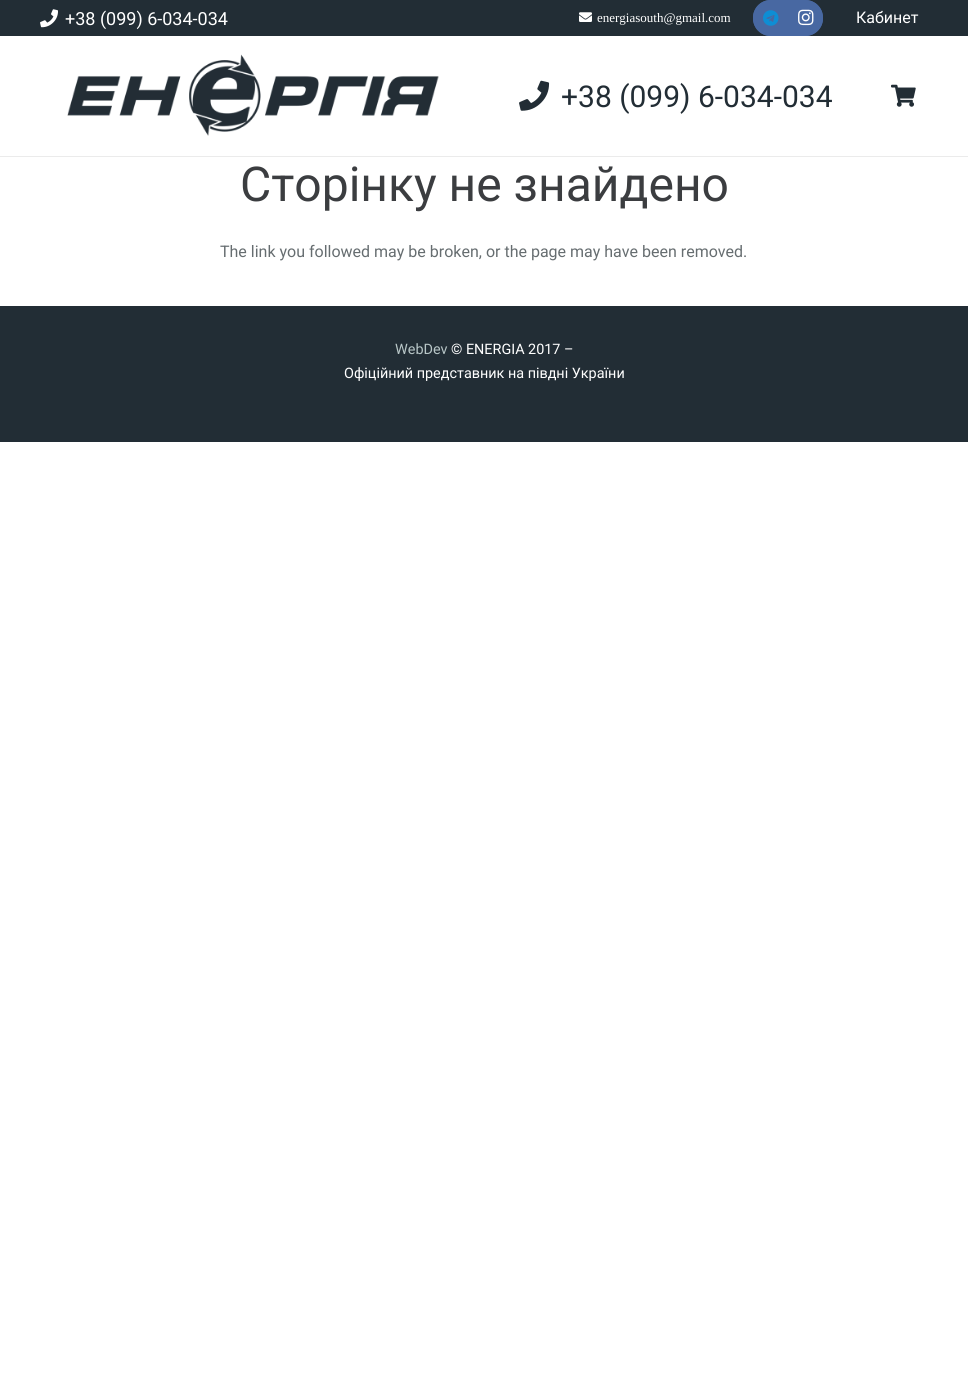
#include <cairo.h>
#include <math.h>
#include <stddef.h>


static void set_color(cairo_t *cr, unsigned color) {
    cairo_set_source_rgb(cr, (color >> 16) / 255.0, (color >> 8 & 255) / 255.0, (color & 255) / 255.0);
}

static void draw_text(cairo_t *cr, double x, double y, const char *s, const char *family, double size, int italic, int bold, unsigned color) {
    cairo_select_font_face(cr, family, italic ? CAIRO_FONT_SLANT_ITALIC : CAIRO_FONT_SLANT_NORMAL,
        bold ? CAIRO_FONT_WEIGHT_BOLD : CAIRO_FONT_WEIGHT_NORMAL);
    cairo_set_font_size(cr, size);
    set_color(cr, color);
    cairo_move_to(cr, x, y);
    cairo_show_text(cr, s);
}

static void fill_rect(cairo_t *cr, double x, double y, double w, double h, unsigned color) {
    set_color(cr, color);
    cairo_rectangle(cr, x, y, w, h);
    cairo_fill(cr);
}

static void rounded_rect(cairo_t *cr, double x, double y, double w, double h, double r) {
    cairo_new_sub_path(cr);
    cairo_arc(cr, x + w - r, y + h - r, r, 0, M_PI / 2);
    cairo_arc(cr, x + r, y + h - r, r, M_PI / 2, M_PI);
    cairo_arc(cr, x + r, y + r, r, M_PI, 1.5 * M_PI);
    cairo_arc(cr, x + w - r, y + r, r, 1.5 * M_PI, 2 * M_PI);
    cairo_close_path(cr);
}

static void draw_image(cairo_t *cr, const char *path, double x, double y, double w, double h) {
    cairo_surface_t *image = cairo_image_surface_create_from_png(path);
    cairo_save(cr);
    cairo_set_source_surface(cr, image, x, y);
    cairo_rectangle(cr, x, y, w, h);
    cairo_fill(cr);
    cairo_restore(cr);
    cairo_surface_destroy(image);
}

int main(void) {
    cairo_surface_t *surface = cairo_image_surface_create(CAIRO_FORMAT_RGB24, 968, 1395);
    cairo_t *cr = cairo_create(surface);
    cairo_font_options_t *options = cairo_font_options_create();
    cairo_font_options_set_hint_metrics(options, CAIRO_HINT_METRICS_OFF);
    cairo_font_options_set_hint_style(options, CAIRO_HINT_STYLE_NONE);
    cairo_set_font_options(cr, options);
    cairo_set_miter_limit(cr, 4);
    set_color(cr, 0xFFFFFF);
    cairo_paint(cr);
    fill_rect(cr, 0, 0, 968, 36, 0x222D35);
    draw_image(cr, "assets/img1.png", 40, 9, 18, 19);
    draw_text(cr, 65, 25, "+38 (099) 6-034-034", "Roboto", 18, 0, 0, 0xFFFFFF);
    draw_image(cr, "assets/img2.png", 579, 12, 13, 10);
    draw_text(cr, 597, 22, "energiasouth@gmail.com", "Liberation Serif", 13, 0, 0, 0xFFFFFF);
    set_color(cr, 0x4868A2);
    rounded_rect(cr, 753, 0, 70, 36, 18);
    cairo_fill(cr);
    rounded_rect(cr, 753, 0, 35, 36, 17.5);
    cairo_fill(cr);
    draw_image(cr, "assets/img3.png", 763, 10, 16, 16);
    rounded_rect(cr, 788, 0, 35, 36, 17.5);
    cairo_fill(cr);
    draw_image(cr, "assets/img4.png", 798, 9, 16, 17);
    draw_text(cr, 856, 23, "Кабинет", "Roboto", 16, 0, 0, 0xFFFFFF);
    fill_rect(cr, 0, 156, 968, 1, 0xEBEBEB);
    draw_image(cr, "assets/img5.png", 67, 54, 372, 82);
    draw_image(cr, "assets/img6.png", 519, 80, 31, 31);
    draw_text(cr, 561, 107, "+38 (099) 6-034-034", "Roboto", 30, 0, 0, 0x222D35);
    draw_image(cr, "assets/img7.png", 891, 84, 25, 23);
    draw_text(cr, 240, 201, "Сторінку не знайдено", "Roboto", 48, 0, 0, 0x3B3D40);
    draw_text(cr, 220, 257, "The link you followed may be broken, or the page may have been removed.", "Roboto", 16, 0, 0, 0x666D70);
    fill_rect(cr, 0, 306, 968, 136, 0x222D35);
    draw_text(cr, 395, 354, "WebDev", "Roboto", 14.4, 0, 0, 0xB8C6C7);
    draw_text(cr, 451, 354, "© ENERGIA 2017 –", "Roboto", 14.4, 0, 0, 0xFFFFFF);
    draw_text(cr, 344, 378, "Офіційний представник на півдні України", "Roboto", 14.4, 0, 0, 0xFFFFFF);
    cairo_surface_write_to_png(surface, "output.png");
    cairo_font_options_destroy(options);
    cairo_destroy(cr);
    cairo_surface_destroy(surface);
    return 0;
}
